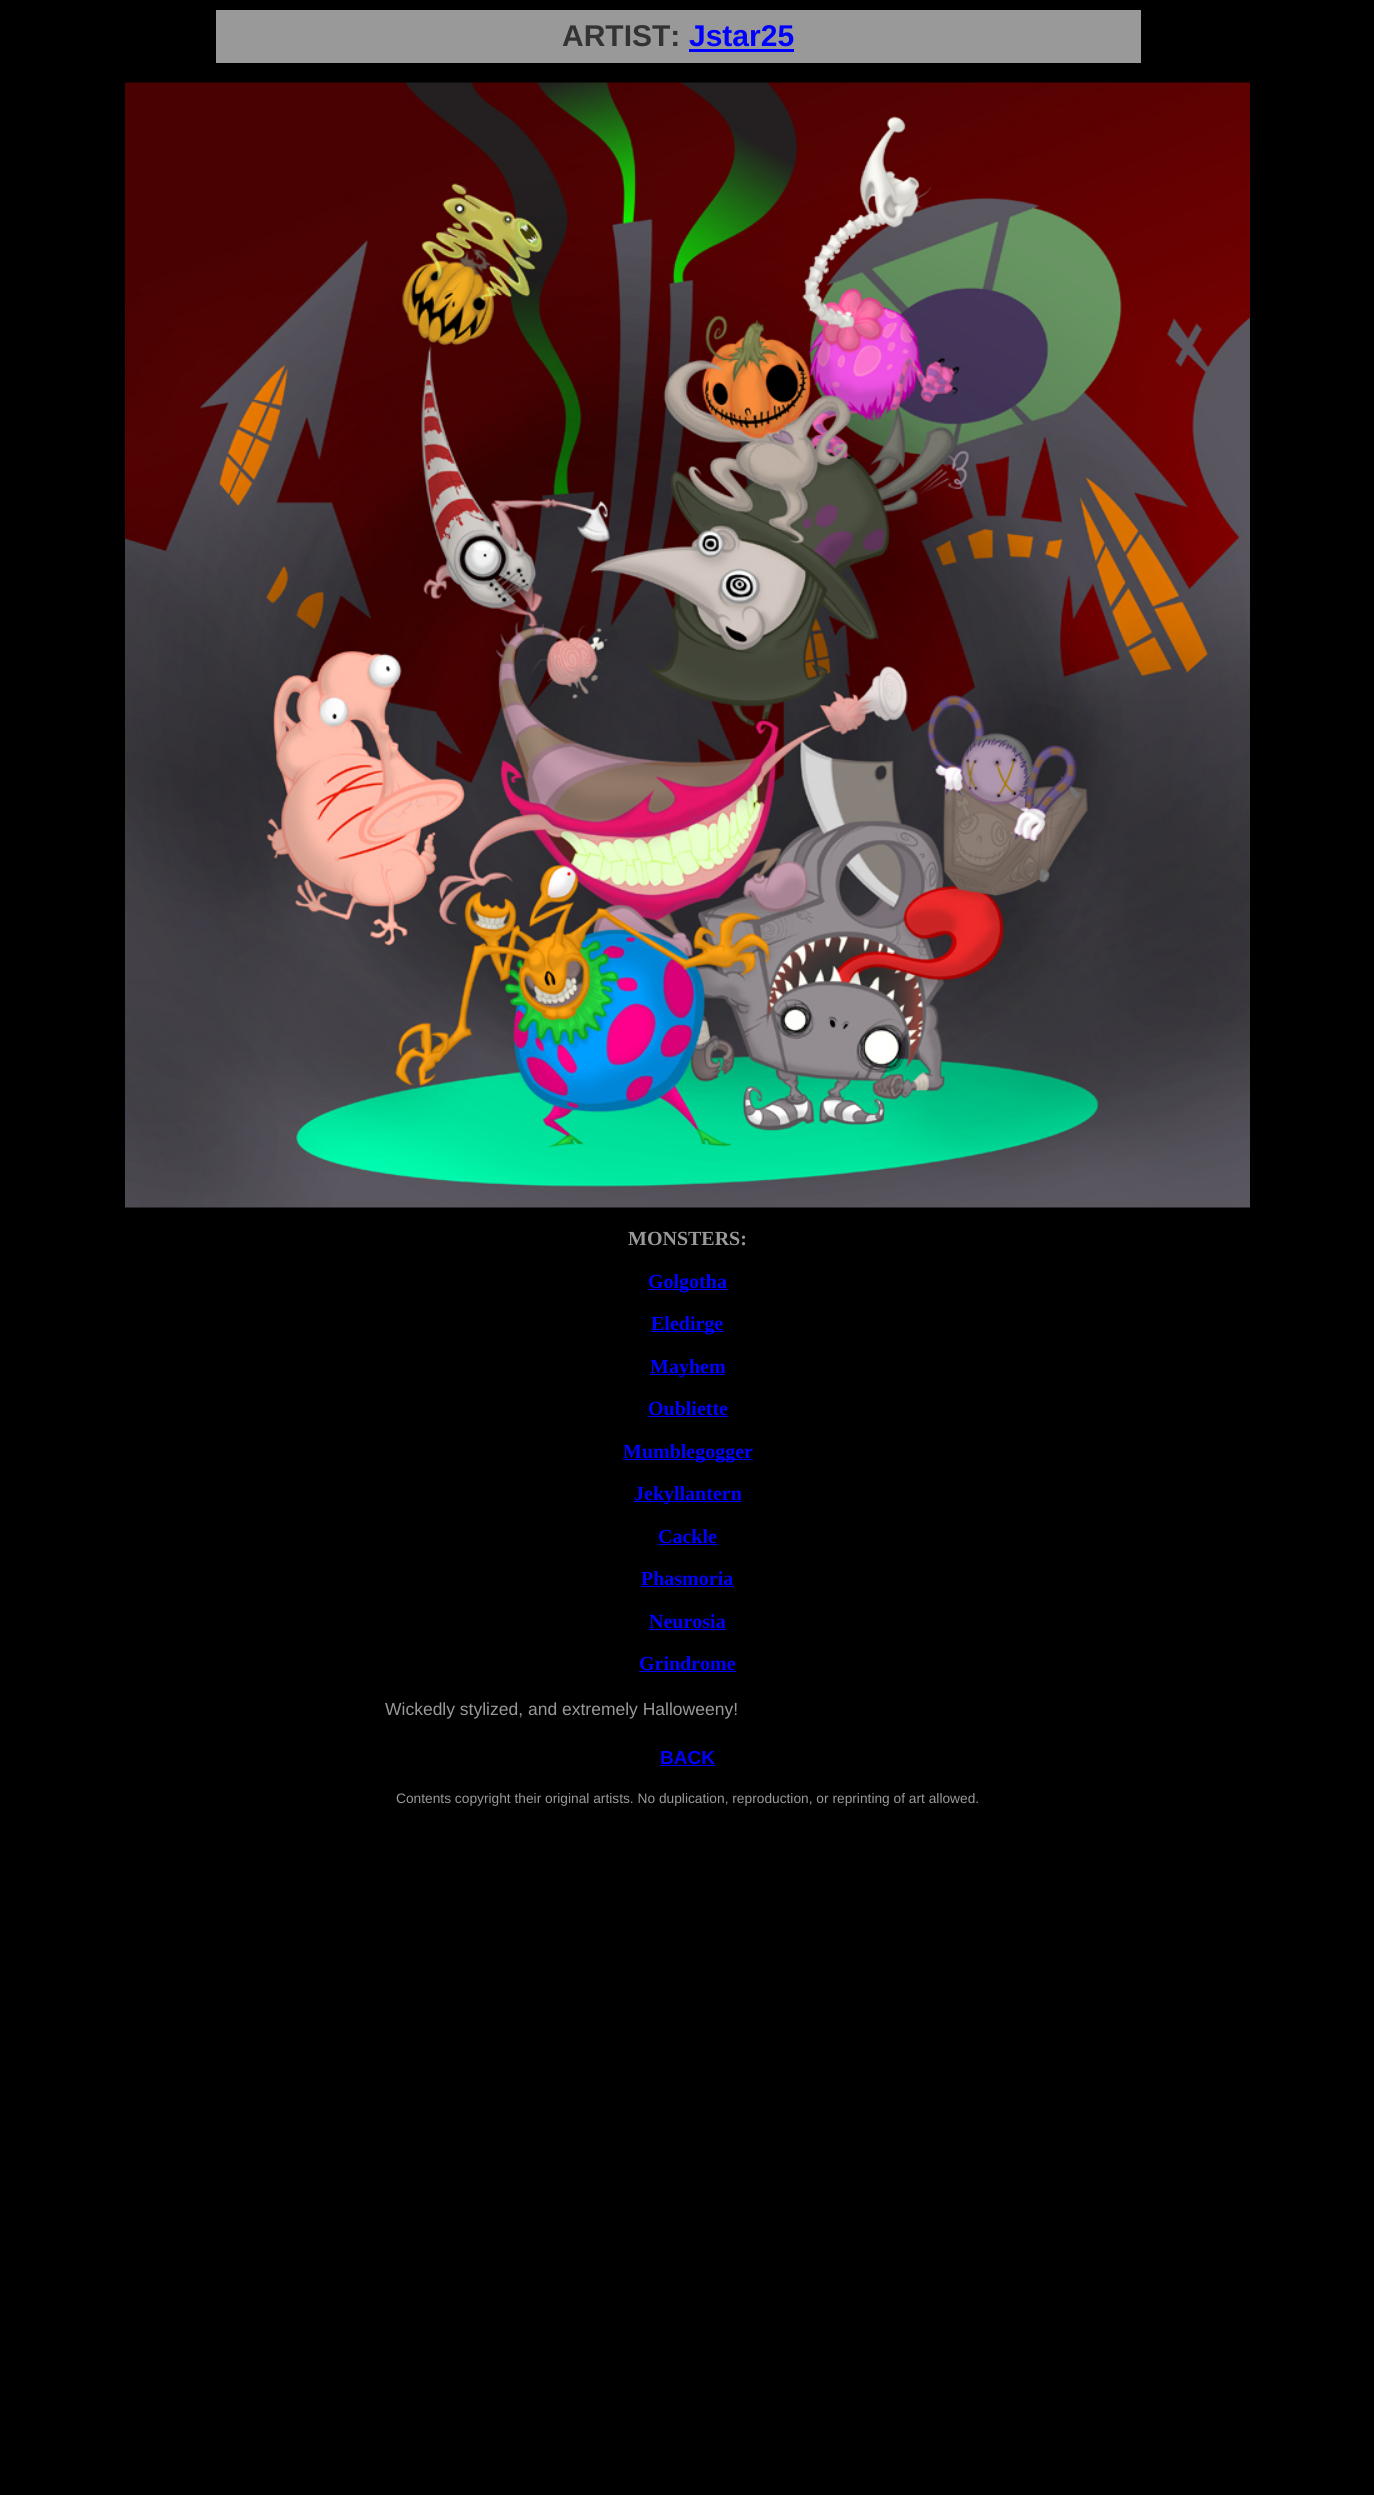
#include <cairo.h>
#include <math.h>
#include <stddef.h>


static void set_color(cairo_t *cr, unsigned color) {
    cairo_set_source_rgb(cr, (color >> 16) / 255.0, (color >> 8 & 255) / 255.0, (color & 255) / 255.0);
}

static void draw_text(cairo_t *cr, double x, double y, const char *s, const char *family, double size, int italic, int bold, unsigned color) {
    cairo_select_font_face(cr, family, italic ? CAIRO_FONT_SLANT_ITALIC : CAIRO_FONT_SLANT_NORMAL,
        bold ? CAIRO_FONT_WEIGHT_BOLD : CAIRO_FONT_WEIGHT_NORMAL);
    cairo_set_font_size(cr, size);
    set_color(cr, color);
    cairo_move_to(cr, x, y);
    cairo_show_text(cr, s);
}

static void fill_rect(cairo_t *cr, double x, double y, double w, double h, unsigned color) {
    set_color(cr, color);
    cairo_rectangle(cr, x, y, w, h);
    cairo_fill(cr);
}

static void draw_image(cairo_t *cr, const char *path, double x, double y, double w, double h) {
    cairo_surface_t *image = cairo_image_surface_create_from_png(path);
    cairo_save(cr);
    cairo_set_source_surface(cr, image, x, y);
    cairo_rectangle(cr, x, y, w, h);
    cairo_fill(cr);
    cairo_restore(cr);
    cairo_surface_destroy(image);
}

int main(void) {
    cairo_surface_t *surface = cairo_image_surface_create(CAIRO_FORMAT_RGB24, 1374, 2495);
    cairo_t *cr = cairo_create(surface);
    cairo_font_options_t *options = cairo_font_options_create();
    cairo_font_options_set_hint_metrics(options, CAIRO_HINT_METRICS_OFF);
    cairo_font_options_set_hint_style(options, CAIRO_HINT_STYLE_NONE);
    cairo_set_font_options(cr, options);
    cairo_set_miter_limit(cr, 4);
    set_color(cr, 0x000000);
    cairo_paint(cr);
    fill_rect(cr, 216, 10, 925, 53, 0x999999);
    draw_text(cr, 562, 46, "ARTIST:", "Liberation Sans", 30, 0, 1, 0x333333);
    draw_text(cr, 689, 46, "Jstar25", "Liberation Sans", 30, 0, 1, 0x0000FF);
    fill_rect(cr, 689, 49, 105, 3, 0x0000FF);
    draw_image(cr, "assets/img1.png", 125, 82, 1125, 1126);
    draw_text(cr, 628, 1245, "MONSTERS:", "Liberation Serif", 20, 0, 1, 0x999999);
    fill_rect(cr, 648, 1289, 80, 1, 0x0000FF);
    draw_text(cr, 648, 1288, "Golgotha", "Liberation Serif", 20, 0, 1, 0x0000FF);
    fill_rect(cr, 651, 1331, 73, 1, 0x0000FF);
    draw_text(cr, 651, 1330, "Eledirge", "Liberation Serif", 20, 0, 1, 0x0000FF);
    fill_rect(cr, 650, 1374, 75, 1, 0x0000FF);
    draw_text(cr, 650, 1373, "Mayhem", "Liberation Serif", 20, 0, 1, 0x0000FF);
    draw_text(cr, 648, 1415, "Oubliette", "Liberation Serif", 20, 0, 1, 0x0000FF);
    fill_rect(cr, 648, 1416, 80, 1, 0x0000FF);
    fill_rect(cr, 623, 1459, 130, 1, 0x0000FF);
    draw_text(cr, 623, 1458, "Mumblegogger", "Liberation Serif", 20, 0, 1, 0x0000FF);
    fill_rect(cr, 634, 1501, 107, 1, 0x0000FF);
    draw_text(cr, 634, 1500, "Jekyllantern", "Liberation Serif", 20, 0, 1, 0x0000FF);
    draw_text(cr, 658, 1543, "Cackle", "Liberation Serif", 20, 0, 1, 0x0000FF);
    fill_rect(cr, 658, 1544, 60, 1, 0x0000FF);
    draw_text(cr, 641, 1585, "Phasmoria", "Liberation Serif", 20, 0, 1, 0x0000FF);
    fill_rect(cr, 641, 1586, 93, 1, 0x0000FF);
    draw_text(cr, 649, 1628, "Neurosia", "Liberation Serif", 20, 0, 1, 0x0000FF);
    fill_rect(cr, 649, 1629, 77, 1, 0x0000FF);
    draw_text(cr, 639, 1670, "Grindrome", "Liberation Serif", 20, 0, 1, 0x0000FF);
    fill_rect(cr, 639, 1671, 97, 1, 0x0000FF);
    draw_text(cr, 385, 1715, "Wickedly stylized, and extremely Halloweeny!", "Liberation Sans", 17.5, 0, 0, 0x999999);
    draw_text(cr, 660, 1764, "BACK", "Liberation Sans", 19, 0, 1, 0x0000FF);
    fill_rect(cr, 660, 1765, 55, 1, 0x0000FF);
    draw_text(cr, 396, 1803, "Contents copyright their original artists. No duplication, reproduction, or reprinting of art allowed.", "Liberation Sans", 13.75, 0, 0, 0x999999);
    cairo_surface_write_to_png(surface, "output.png");
    cairo_font_options_destroy(options);
    cairo_destroy(cr);
    cairo_surface_destroy(surface);
    return 0;
}
